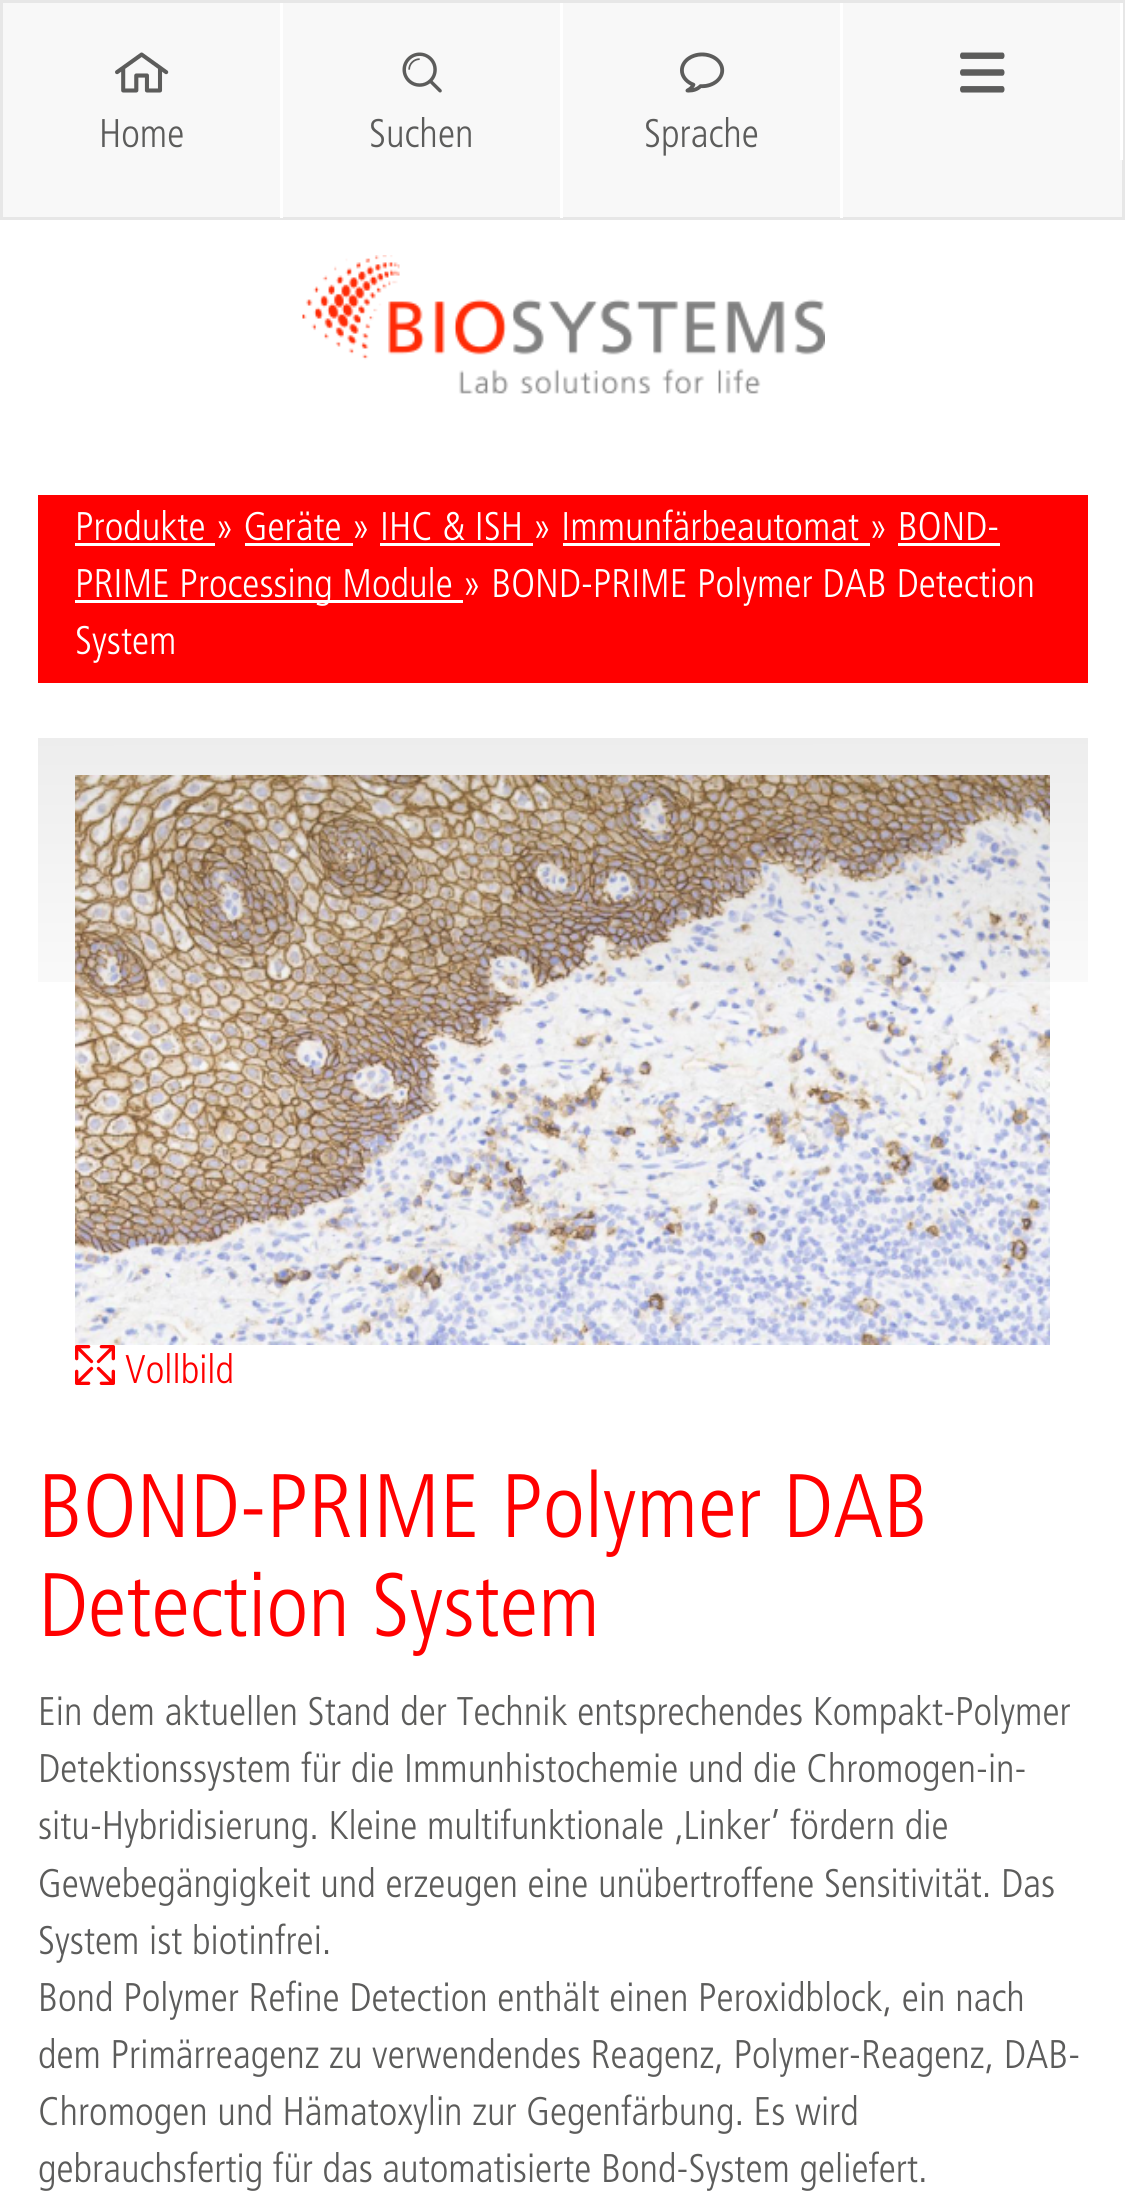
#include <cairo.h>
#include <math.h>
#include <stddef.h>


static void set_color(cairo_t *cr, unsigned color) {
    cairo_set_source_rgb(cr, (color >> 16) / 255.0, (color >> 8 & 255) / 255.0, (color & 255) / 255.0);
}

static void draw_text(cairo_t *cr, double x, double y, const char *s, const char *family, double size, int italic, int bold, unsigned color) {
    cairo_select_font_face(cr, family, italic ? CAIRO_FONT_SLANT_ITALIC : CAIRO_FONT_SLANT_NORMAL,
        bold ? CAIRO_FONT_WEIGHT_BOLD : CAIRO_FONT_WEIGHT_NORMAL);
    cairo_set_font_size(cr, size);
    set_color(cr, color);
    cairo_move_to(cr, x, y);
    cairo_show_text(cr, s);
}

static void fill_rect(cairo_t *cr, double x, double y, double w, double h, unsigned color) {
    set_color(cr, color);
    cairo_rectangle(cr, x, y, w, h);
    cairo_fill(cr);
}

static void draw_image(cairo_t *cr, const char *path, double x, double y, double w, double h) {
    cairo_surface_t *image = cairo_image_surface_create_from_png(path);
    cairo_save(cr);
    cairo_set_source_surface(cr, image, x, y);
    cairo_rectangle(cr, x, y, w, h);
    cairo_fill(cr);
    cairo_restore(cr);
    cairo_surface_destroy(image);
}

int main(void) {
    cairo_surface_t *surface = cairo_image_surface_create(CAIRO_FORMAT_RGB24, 1125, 2211);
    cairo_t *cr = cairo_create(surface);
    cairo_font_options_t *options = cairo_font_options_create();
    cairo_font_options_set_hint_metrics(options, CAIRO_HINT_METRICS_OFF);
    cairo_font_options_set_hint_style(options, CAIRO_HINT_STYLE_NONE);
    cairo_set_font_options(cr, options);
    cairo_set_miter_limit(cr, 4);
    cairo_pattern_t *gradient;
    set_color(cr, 0xFFFFFF);
    cairo_paint(cr);
    set_color(cr, 0xF8F8F8);
    cairo_rectangle(cr, 1.5, 1.5, 1122, 217);
    cairo_fill_preserve(cr);
    set_color(cr, 0xE7E7E7);
    cairo_set_line_width(cr, 3);
    cairo_stroke(cr);
    fill_rect(cr, 280, 3, 3, 215, 0xFFFFFF);
    draw_image(cr, "assets/img1.png", 115, 52, 54, 41);
    draw_text(cr, 99, 147, "Home", "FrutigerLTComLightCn", 40, 0, 0, 0x5C5C5B);
    fill_rect(cr, 560, 3, 3, 215, 0xFFFFFF);
    draw_image(cr, "assets/img2.png", 402, 52, 40, 41);
    draw_text(cr, 369, 147, "Suchen", "FrutigerLTComLightCn", 40, 0, 0, 0x5C5C5B);
    fill_rect(cr, 840, 3, 3, 215, 0xFFFFFF);
    draw_image(cr, "assets/img3.png", 680, 52, 45, 41);
    draw_text(cr, 644, 147, "Sprache", "FrutigerLTComLightCn", 40, 0, 0, 0x5C5C5B);
    fill_rect(cr, 1120, 3, 3, 157, 0xFFFFFF);
    draw_image(cr, "assets/img4.png", 960, 52, 45, 41);
    draw_image(cr, "assets/img5.png", 302, 255, 523, 139);
    fill_rect(cr, 38, 495, 1050, 188, 0xFF0000);
    draw_text(cr, 75, 540, "Produkte » Geräte » IHC & ISH » Immunfärbeautomat » BOND-", "FrutigerLTComLightCn", 40, 0, 0, 0xFFFFFF);
    fill_rect(cr, 75, 543, 140, 3, 0xFFFFFF);
    fill_rect(cr, 245, 543, 108, 3, 0xFFFFFF);
    fill_rect(cr, 380, 543, 153, 3, 0xFFFFFF);
    fill_rect(cr, 563, 543, 307, 3, 0xFFFFFF);
    fill_rect(cr, 75, 600, 388, 3, 0xFFFFFF);
    draw_text(cr, 75, 597, "PRIME Processing Module » BOND-PRIME Polymer DAB Detection", "FrutigerLTComLightCn", 40, 0, 0, 0xFFFFFF);
    fill_rect(cr, 898, 543, 102, 3, 0xFFFFFF);
    draw_text(cr, 75, 654, "System", "FrutigerLTComLightCn", 40, 0, 0, 0xFFFFFF);
    draw_image(cr, "assets/img6.png", 75, 775, 975, 570);
    gradient = cairo_pattern_create_linear(562, 738, 563, 1440);
    cairo_pattern_add_color_stop_rgba(gradient, 0, 0, 0, 0, 0.07);
    cairo_pattern_add_color_stop_rgba(gradient, 0.5, 0, 0, 0, 0);
    cairo_pattern_add_color_stop_rgba(gradient, 1, 0, 0, 0, 0);
    cairo_set_source(cr, gradient);
    cairo_pattern_destroy(gradient);
    cairo_rectangle(cr, 38, 738, 1050, 244);
    cairo_fill(cr);
    draw_image(cr, "assets/img7.png", 75, 1345, 40, 40);
    draw_text(cr, 125, 1383, "Vollbild", "FrutigerLTComLightCn", 40, 0, 0, 0xFF0000);
    draw_text(cr, 38, 1537, "BOND-PRIME Polymer DAB", "FrutigerLTComLightCn", 90, 0, 0, 0xFF0000);
    draw_text(cr, 38, 1636, "Detection System", "FrutigerLTComLightCn", 90, 0, 0, 0xFF0000);
    draw_text(cr, 38, 1725, "Ein dem aktuellen Stand der Technik entsprechendes Kompakt-Polymer", "FrutigerLTComLightCn", 40, 0, 0, 0x5C5C5B);
    draw_text(cr, 38, 1782, "Detektionssystem für die Immunhistochemie und die Chromogen-in-", "FrutigerLTComLightCn", 40, 0, 0, 0x5C5C5B);
    draw_text(cr, 38, 1839, "situ-Hybridisierung. Kleine multifunktionale ‚Linker’ fördern die", "FrutigerLTComLightCn", 40, 0, 0, 0x5C5C5B);
    draw_text(cr, 38, 1897, "Gewebegängigkeit und erzeugen eine unübertroffene Sensitivität. Das", "FrutigerLTComLightCn", 40, 0, 0, 0x5C5C5B);
    draw_text(cr, 38, 1954, "System ist biotinfrei.", "FrutigerLTComLightCn", 40, 0, 0, 0x5C5C5B);
    draw_text(cr, 38, 2011, "Bond Polymer Refine Detection enthält einen Peroxidblock, ein nach", "FrutigerLTComLightCn", 40, 0, 0, 0x5C5C5B);
    draw_text(cr, 38, 2068, "dem Primärreagenz zu verwendendes Reagenz, Polymer-Reagenz, DAB-", "FrutigerLTComLightCn", 40, 0, 0, 0x5C5C5B);
    draw_text(cr, 38, 2125, "Chromogen und Hämatoxylin zur Gegenfärbung. Es wird", "FrutigerLTComLightCn", 40, 0, 0, 0x5C5C5B);
    draw_text(cr, 38, 2182, "gebrauchsfertig für das automatisierte Bond-System geliefert.", "FrutigerLTComLightCn", 40, 0, 0, 0x5C5C5B);
    cairo_surface_write_to_png(surface, "output.png");
    cairo_font_options_destroy(options);
    cairo_destroy(cr);
    cairo_surface_destroy(surface);
    return 0;
}
